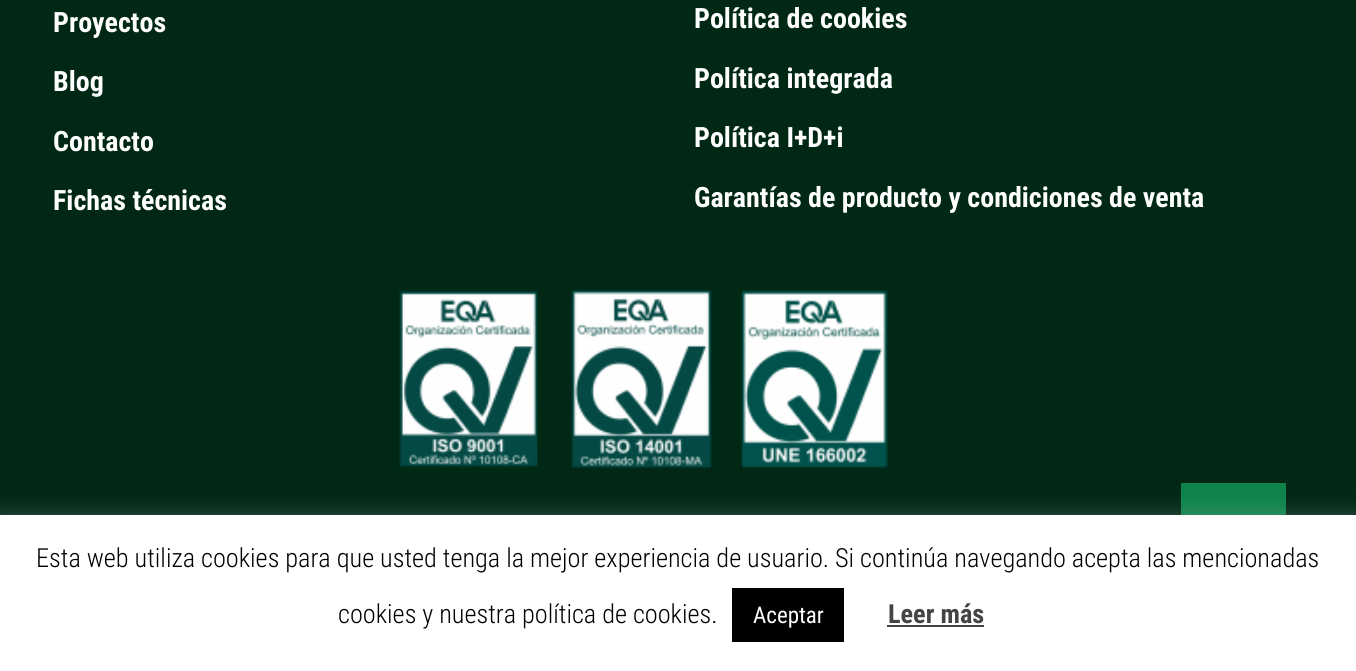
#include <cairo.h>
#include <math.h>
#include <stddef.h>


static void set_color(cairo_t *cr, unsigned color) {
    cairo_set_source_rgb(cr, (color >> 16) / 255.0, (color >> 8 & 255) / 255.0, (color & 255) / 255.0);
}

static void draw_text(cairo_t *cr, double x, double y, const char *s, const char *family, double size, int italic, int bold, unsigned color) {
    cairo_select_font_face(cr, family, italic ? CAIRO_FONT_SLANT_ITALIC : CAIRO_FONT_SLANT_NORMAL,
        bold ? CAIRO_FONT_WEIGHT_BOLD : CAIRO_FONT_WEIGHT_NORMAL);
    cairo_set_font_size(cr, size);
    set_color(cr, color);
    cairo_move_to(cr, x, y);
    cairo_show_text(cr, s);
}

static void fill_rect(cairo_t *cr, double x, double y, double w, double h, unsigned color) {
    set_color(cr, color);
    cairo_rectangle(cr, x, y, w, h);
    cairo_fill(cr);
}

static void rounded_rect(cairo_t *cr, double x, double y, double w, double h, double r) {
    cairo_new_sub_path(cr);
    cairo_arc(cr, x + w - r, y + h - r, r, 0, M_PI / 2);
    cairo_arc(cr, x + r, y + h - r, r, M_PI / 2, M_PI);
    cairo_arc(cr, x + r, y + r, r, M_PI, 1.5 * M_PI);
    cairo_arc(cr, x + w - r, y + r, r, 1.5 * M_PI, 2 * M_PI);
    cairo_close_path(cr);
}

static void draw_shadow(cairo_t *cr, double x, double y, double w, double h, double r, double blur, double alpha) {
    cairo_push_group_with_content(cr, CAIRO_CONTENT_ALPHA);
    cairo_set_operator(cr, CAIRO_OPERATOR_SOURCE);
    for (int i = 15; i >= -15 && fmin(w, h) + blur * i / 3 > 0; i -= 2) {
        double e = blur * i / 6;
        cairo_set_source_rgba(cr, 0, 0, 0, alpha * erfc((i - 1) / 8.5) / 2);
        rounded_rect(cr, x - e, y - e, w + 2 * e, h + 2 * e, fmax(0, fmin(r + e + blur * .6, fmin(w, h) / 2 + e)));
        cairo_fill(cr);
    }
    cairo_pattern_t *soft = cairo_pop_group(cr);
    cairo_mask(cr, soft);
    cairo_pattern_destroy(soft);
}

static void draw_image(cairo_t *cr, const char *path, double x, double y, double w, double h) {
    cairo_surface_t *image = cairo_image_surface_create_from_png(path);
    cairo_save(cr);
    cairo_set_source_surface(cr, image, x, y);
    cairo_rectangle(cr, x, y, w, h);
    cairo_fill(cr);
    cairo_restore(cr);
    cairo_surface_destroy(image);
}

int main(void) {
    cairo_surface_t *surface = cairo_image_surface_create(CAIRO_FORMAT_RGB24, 1356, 671);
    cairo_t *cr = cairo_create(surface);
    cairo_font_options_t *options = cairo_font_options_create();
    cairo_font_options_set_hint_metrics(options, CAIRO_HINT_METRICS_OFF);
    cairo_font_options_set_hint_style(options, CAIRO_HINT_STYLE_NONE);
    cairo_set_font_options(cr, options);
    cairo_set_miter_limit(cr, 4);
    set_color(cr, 0x002815);
    cairo_paint(cr);
    draw_text(cr, 53, 32, "Proyectos", "Roboto Condensed", 28, 0, 1, 0xFFFFFF);
    draw_text(cr, 53, 91, "Blog", "Roboto Condensed", 28, 0, 1, 0xFFFFFF);
    draw_text(cr, 53, 151, "Contacto", "Roboto Condensed", 28, 0, 1, 0xFFFFFF);
    draw_text(cr, 53, 210, "Fichas técnicas", "Roboto Condensed", 28, 0, 1, 0xFFFFFF);
    draw_text(cr, 694, 28, "Política de cookies", "Roboto Condensed", 28, 0, 1, 0xFFFFFF);
    draw_text(cr, 694, 88, "Política integrada", "Roboto Condensed", 28, 0, 1, 0xFFFFFF);
    draw_text(cr, 694, 147, "Política I+D+i", "Roboto Condensed", 28, 0, 1, 0xFFFFFF);
    draw_text(cr, 694, 207, "Garantías de producto y condiciones de venta", "Roboto Condensed", 28, 0, 1, 0xFFFFFF);
    draw_image(cr, "assets/img1.png", 399, 290, 489, 178);
    fill_rect(cr, 1181, 483, 105, 32, 0x0E844B);
    set_color(cr, 0xACABAB);
    draw_shadow(cr, 0, 513, 1356, 157, 0, 9, 0.3);
    fill_rect(cr, 0, 515, 1356, 156, 0xFFFFFF);
    draw_text(cr, 36, 567, "Esta web utiliza cookies para que usted tenga la mejor experiencia de usuario. Si continúa navegando acepta las mencionadas", "Roboto Condensed Light", 26.25, 0, 0, 0x000000);
    draw_text(cr, 338, 623, "cookies y nuestra política de cookies.", "Roboto Condensed Light", 26.25, 0, 0, 0x000000);
    fill_rect(cr, 732, 588, 112, 54, 0x000000);
    draw_text(cr, 753, 623, "Aceptar", "Roboto Condensed", 23, 0, 0, 0xFFFFFF);
    draw_text(cr, 888, 623, "Leer más", "Roboto Condensed", 26.25, 0, 1, 0x444444);
    fill_rect(cr, 887, 625, 97, 2, 0x444444);
    cairo_surface_write_to_png(surface, "output.png");
    cairo_font_options_destroy(options);
    cairo_destroy(cr);
    cairo_surface_destroy(surface);
    return 0;
}
